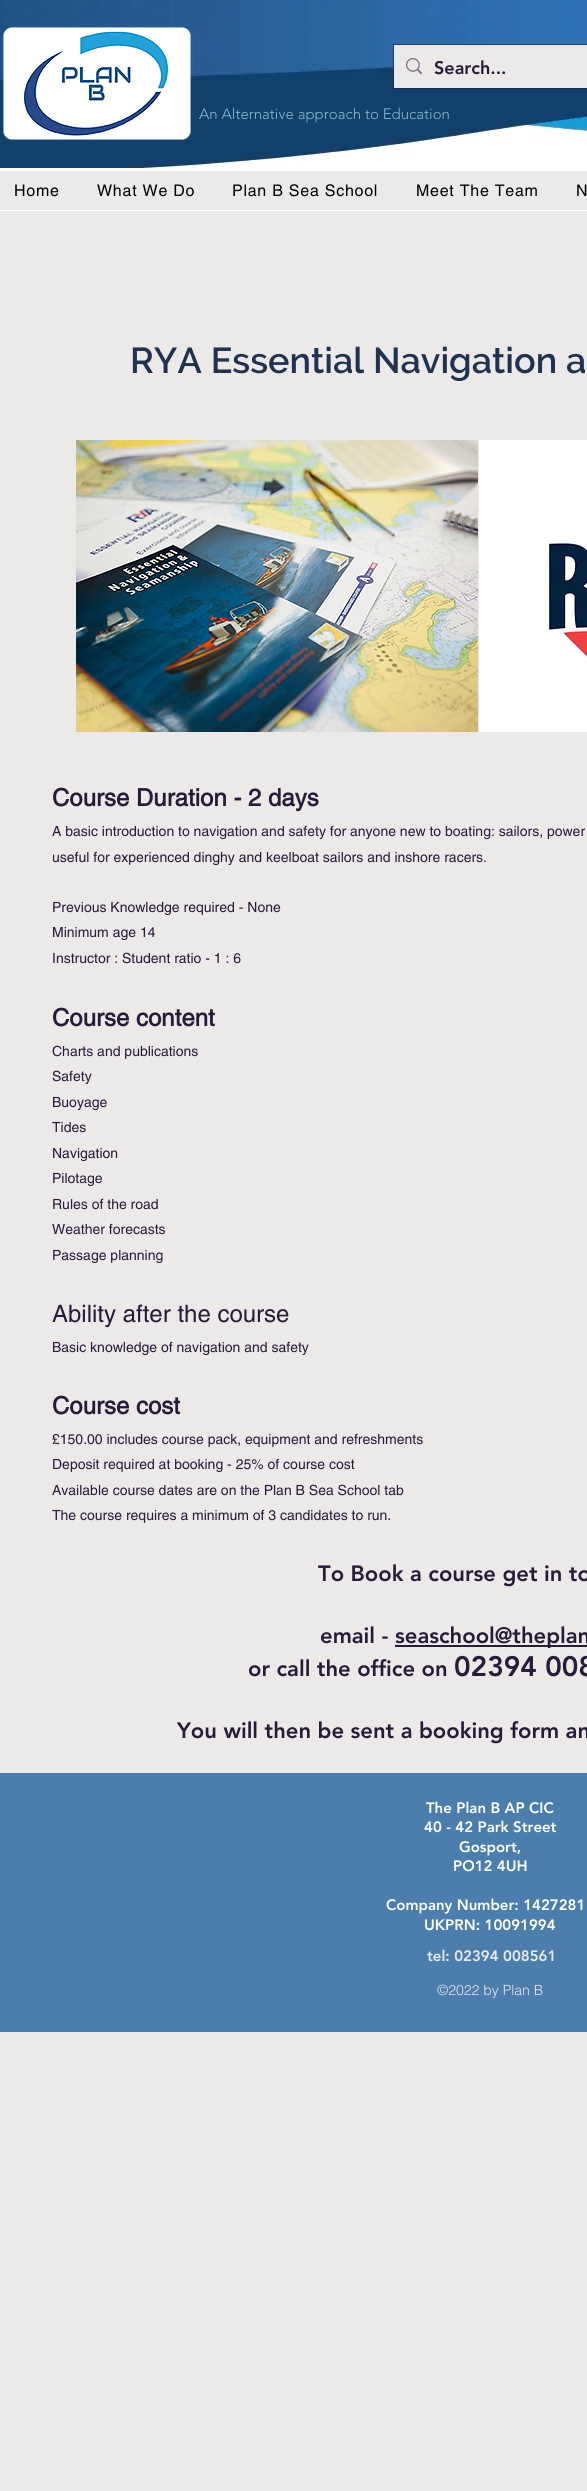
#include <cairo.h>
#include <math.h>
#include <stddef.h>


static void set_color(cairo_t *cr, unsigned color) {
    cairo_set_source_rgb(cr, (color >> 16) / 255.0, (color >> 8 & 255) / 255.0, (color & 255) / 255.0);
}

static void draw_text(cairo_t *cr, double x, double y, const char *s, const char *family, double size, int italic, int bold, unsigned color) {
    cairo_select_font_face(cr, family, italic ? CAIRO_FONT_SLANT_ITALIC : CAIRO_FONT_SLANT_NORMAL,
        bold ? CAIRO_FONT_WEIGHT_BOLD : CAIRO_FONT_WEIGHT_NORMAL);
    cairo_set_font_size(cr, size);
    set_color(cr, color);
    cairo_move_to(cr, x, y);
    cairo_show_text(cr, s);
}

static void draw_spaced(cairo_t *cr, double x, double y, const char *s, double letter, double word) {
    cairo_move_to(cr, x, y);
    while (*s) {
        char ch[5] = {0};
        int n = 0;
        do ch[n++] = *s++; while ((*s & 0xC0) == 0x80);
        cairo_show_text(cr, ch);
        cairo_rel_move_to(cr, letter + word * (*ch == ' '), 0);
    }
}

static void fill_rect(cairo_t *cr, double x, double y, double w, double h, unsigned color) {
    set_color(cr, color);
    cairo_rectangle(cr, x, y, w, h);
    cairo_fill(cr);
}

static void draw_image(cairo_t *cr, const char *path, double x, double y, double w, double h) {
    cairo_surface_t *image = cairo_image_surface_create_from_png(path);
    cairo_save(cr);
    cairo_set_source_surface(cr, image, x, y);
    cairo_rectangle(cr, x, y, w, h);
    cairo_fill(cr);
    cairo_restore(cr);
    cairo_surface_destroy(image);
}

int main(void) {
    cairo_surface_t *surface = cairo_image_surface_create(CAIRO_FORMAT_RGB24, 587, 2491);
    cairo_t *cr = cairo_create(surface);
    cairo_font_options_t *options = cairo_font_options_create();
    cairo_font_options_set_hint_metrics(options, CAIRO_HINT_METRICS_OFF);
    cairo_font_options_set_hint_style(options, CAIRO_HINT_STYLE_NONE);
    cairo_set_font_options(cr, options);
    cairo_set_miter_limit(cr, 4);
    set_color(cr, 0xECE9E9);
    cairo_paint(cr);
    draw_image(cr, "assets/img1.png", 0, 0, 587, 168);
    draw_image(cr, "assets/img2.png", 1, 25, 192, 117);
    cairo_rectangle(cr, 393.5, 44.5, 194, 44);
    cairo_set_source_rgba(cr, 0.157, 0.102, 0.224, 0.6);
    cairo_set_line_width(cr, 1);
    cairo_stroke(cr);
    fill_rect(cr, 394, 45, 193, 43, 0xECE9E9);
    draw_image(cr, "assets/img3.png", 406, 58, 16, 17);
    draw_text(cr, 434, 74, "Search...", "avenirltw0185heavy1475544 Black", 18, 0, 0, 0x281A39);
    draw_text(cr, 199, 119, "An Alternative approach to Education", "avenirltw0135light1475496 Light", 15, 0, 0, 0x82BED1);
    fill_rect(cr, 0, 168, 587, 43, 0xFFFFFF);
    fill_rect(cr, 0, 171, 587, 39, 0xECE9E9);
    cairo_select_font_face(cr, "helvetica", CAIRO_FONT_SLANT_NORMAL, CAIRO_FONT_WEIGHT_NORMAL);
    cairo_set_font_size(cr, 16);
    set_color(cr, 0x000000);
    draw_spaced(cr, 14, 196, "Home", 0.75, 0);
    draw_spaced(cr, 97, 196, "What We Do", 0.75, 0);
    draw_spaced(cr, 232, 196, "Plan B Sea School", 0.75, 0);
    draw_spaced(cr, 416, 196, "Meet The Team", 0.75, 0);
    draw_spaced(cr, 576, 196, "N", 0.75, 0);
    draw_text(cr, 130, 373, "RYA Essential Navigation a", "Raleway SemiBold", 36, 0, 0, 0x203250);
    draw_image(cr, "assets/img4.png", 76, 440, 402, 292);
    draw_image(cr, "assets/img5.png", 479, 440, 108, 292);
    draw_text(cr, 52, 806, "Course Duration - 2 days", "helvetica", 24, 0, 1, 0x281A39);
    draw_text(cr, 52, 836, "A basic introduction to navigation and safety for anyone new to boating: sailors, power", "helvetica", 14, 0, 0, 0x281A39);
    draw_text(cr, 52, 862, "useful for experienced dinghy and keelboat sailors and inshore racers.", "helvetica", 14, 0, 0, 0x281A39);
    draw_text(cr, 52, 912, "Previous Knowledge required - None", "helvetica", 14, 0, 0, 0x281A39);
    draw_text(cr, 52, 937, "Minimum age 14", "helvetica", 14, 0, 0, 0x281A39);
    draw_text(cr, 52, 963, "Instructor : Student ratio - 1 : 6", "helvetica", 14, 0, 0, 0x281A39);
    draw_text(cr, 52, 1026, "Course content", "helvetica", 24, 0, 1, 0x281A39);
    draw_text(cr, 52, 1056, "Charts and publications", "helvetica", 14, 0, 0, 0x281A39);
    draw_text(cr, 52, 1081, "Safety", "helvetica", 14, 0, 0, 0x281A39);
    draw_text(cr, 52, 1107, "Buoyage", "helvetica", 14, 0, 0, 0x281A39);
    draw_text(cr, 52, 1132, "Tides", "helvetica", 14, 0, 0, 0x281A39);
    draw_text(cr, 52, 1158, "Navigation", "helvetica", 14, 0, 0, 0x281A39);
    draw_text(cr, 52, 1183, "Pilotage", "helvetica", 14, 0, 0, 0x281A39);
    draw_text(cr, 52, 1209, "Rules of the road", "helvetica", 14, 0, 0, 0x281A39);
    draw_text(cr, 52, 1234, "Weather forecasts", "helvetica", 14, 0, 0, 0x281A39);
    draw_text(cr, 52, 1260, "Passage planning", "helvetica", 14, 0, 0, 0x281A39);
    draw_text(cr, 52, 1322, "Ability after the course", "helvetica", 24, 0, 0, 0x281A39);
    draw_text(cr, 52, 1352, "Basic knowledge of navigation and safety", "helvetica", 14, 0, 0, 0x281A39);
    draw_text(cr, 52, 1414, "Course cost", "helvetica", 24, 0, 1, 0x281A39);
    draw_text(cr, 52, 1444, "£150.00 includes course pack, equipment and refreshments", "helvetica", 14, 0, 0, 0x281A39);
    draw_text(cr, 52, 1469, "Deposit required at booking - 25% of course cost", "helvetica", 14, 0, 0, 0x281A39);
    draw_text(cr, 52, 1495, "Available course dates are on the Plan B Sea School tab", "helvetica", 14, 0, 0, 0x281A39);
    draw_text(cr, 52, 1520, "The course requires a minimum of 3 candidates to run.", "helvetica", 14, 0, 0, 0x281A39);
    draw_text(cr, 318, 1581, "To Book a course get in to", "avenirltw0185heavy1475544 Black", 22, 0, 0, 0x281A39);
    draw_text(cr, 320, 1643, "email -", "avenirltw0185heavy1475544 Black", 22, 0, 0, 0x281A39);
    fill_rect(cr, 395, 1645, 192, 2, 0x281A39);
    draw_text(cr, 395, 1643, "seaschool@theplan", "avenirltw0185heavy1475544 Black", 22, 0, 0, 0x281A39);
    draw_text(cr, 248, 1676, "or call the office on", "avenirltw0185heavy1475544 Black", 22, 0, 0, 0x281A39);
    draw_text(cr, 454, 1676, "02394 008", "avenirltw0185heavy1475544 Black", 28, 0, 0, 0x281A39);
    draw_text(cr, 177, 1738, "You will then be sent a booking form an", "avenirltw0185heavy1475544 Black", 22, 0, 0, 0x281A39);
    fill_rect(cr, 0, 1773, 587, 259, 0x4B7EAC);
    draw_text(cr, 426, 1813, "The Plan B AP CIC", "avenirltw0185heavy1475544 Black", 15, 0, 0, 0xFFFFFF);
    draw_text(cr, 424, 1832, "40 - 42 Park Street", "avenirltw0185heavy1475544 Black", 15, 0, 0, 0xFFFFFF);
    draw_text(cr, 459, 1852, "Gosport,", "avenirltw0185heavy1475544 Black", 15, 0, 0, 0xFFFFFF);
    draw_text(cr, 453, 1871, "PO12 4UH", "avenirltw0185heavy1475544 Black", 15, 0, 0, 0xFFFFFF);
    draw_text(cr, 386, 1910, "Company Number: 1427281", "avenirltw0185heavy1475544 Black", 15, 0, 0, 0xFFFFFF);
    draw_text(cr, 424, 1930, "UKPRN: 10091994", "avenirltw0185heavy1475544 Black", 15, 0, 0, 0xFFFFFF);
    draw_text(cr, 427, 1961, "tel: 02394 008561", "avenirltw0185heavy1475544 Black", 15, 0, 0, 0xECE9E9);
    draw_text(cr, 437, 1995, "©2022 by Plan B", "helvetica Light", 14, 0, 0, 0xECE9E9);
    cairo_surface_write_to_png(surface, "output.png");
    cairo_font_options_destroy(options);
    cairo_destroy(cr);
    cairo_surface_destroy(surface);
    return 0;
}
